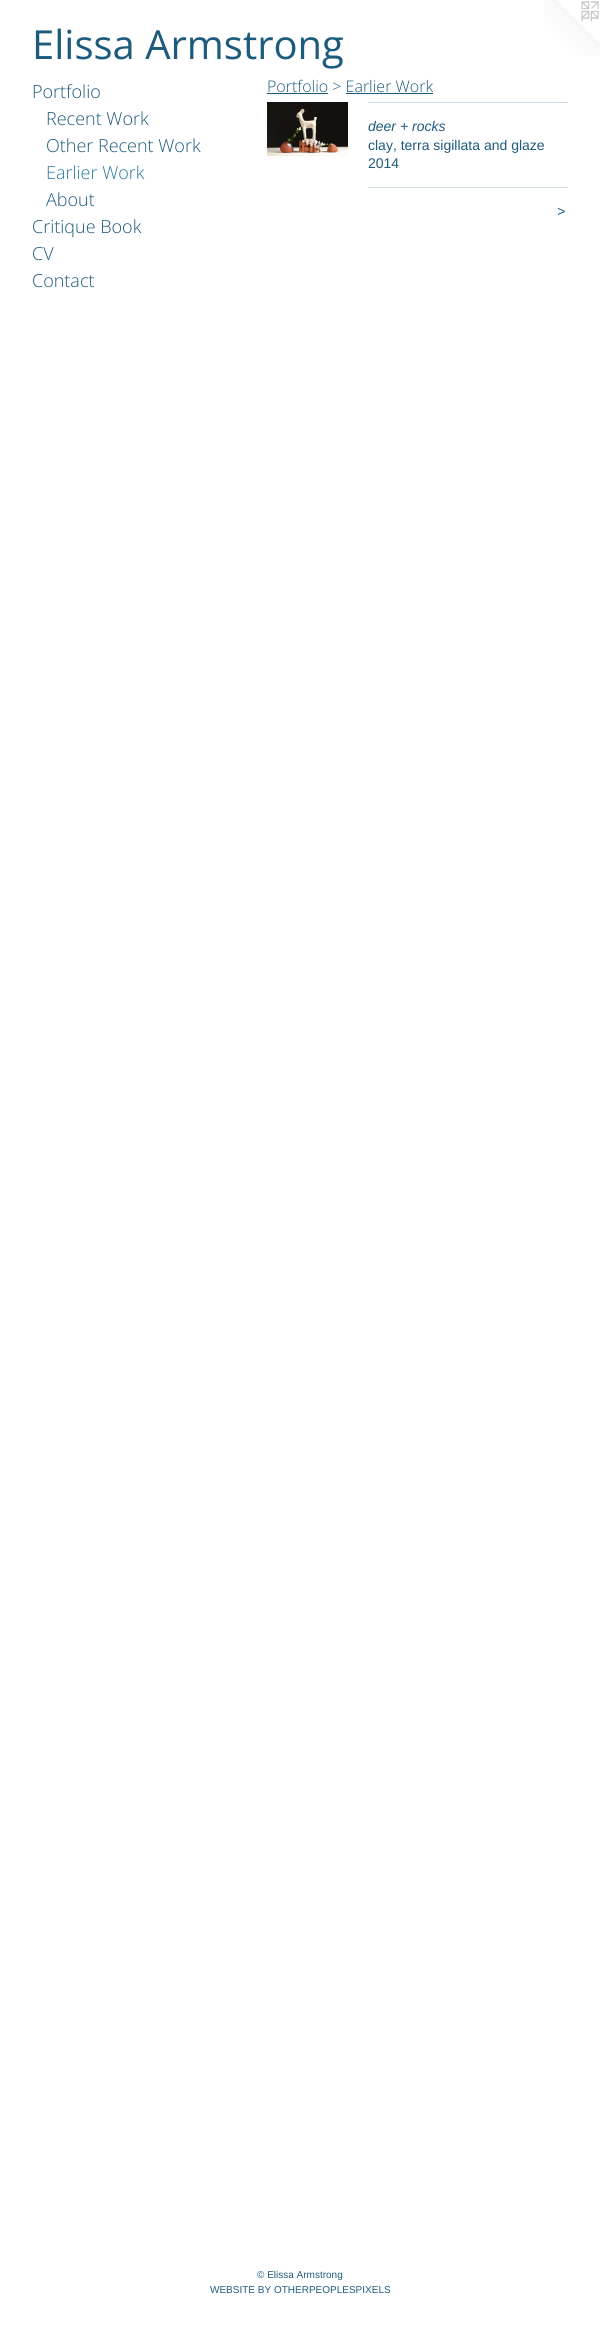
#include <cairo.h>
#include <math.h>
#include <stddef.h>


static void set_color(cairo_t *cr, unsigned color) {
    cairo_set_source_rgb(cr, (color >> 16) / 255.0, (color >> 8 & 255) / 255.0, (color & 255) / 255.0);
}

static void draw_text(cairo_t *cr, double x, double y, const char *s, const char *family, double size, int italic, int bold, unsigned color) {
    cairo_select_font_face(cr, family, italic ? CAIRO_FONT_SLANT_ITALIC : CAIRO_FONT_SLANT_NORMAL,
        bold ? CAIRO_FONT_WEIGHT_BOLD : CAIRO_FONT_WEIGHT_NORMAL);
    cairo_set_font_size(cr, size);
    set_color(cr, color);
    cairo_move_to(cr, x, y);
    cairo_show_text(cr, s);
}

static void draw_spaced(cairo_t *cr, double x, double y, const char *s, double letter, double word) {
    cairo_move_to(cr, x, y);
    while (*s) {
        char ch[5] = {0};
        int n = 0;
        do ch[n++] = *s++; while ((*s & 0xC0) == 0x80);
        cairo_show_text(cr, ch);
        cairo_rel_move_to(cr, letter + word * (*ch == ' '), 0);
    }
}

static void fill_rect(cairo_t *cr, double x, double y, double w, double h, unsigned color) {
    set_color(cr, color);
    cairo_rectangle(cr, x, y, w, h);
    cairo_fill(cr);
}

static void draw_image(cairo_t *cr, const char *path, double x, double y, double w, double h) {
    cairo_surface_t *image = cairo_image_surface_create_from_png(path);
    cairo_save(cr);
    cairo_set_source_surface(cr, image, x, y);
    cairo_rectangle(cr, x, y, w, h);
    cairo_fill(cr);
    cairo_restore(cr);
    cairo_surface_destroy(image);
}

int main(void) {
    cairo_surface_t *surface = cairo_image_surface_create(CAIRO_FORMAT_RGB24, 600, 2347);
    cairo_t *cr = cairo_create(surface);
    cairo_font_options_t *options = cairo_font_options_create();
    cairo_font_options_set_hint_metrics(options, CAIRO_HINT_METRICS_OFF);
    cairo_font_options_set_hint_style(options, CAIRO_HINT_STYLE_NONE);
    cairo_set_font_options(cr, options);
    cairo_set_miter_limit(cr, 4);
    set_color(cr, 0xFFFFFF);
    cairo_paint(cr);
    draw_text(cr, 32, 59, "Elissa Armstrong", "Open Sans", 40, 0, 0, 0x1D5B7C);
    draw_image(cr, "assets/img1.png", 544, 0, 56, 56);
    draw_text(cr, 32, 98, "Portfolio", "Open Sans Light", 18, 0, 0, 0x1D5B7C);
    draw_text(cr, 46, 125, "Recent Work", "Open Sans Light", 18, 0, 0, 0x1D5B7C);
    draw_text(cr, 46, 152, "Other Recent Work", "Open Sans Light", 18, 0, 0, 0x1D5B7C);
    draw_text(cr, 46, 179, "Earlier Work", "Open Sans Light", 18, 0, 0, 0x2779A5);
    draw_text(cr, 46, 206, "About", "Open Sans Light", 18, 0, 0, 0x1D5B7C);
    draw_text(cr, 32, 233, "Critique Book", "Open Sans Light", 18, 0, 0, 0x1D5B7C);
    draw_text(cr, 32, 260, "CV", "Open Sans Light", 18, 0, 0, 0x1D5B7C);
    draw_text(cr, 32, 287, "Contact", "Open Sans Light", 18, 0, 0, 0x1D5B7C);
    draw_text(cr, 267, 92, "Portfolio > Earlier Work", "Open Sans Light", 16, 0, 0, 0x1D5B7C);
    fill_rect(cr, 267, 93, 61, 1, 0x1D5B7C);
    fill_rect(cr, 346, 93, 87, 1, 0x1D5B7C);
    draw_image(cr, "assets/img2.png", 267, 102, 81, 54);
    fill_rect(cr, 368, 102, 200, 1, 0xD2DEE5);
    draw_text(cr, 368, 131, "deer + rocks", "Liberation Sans", 14, 1, 0, 0x1D5B7C);
    draw_text(cr, 368, 150, "clay, terra sigillata and glaze", "Liberation Sans", 14, 0, 0, 0x1D5B7C);
    draw_text(cr, 368, 168, "2014", "Liberation Sans", 14, 0, 0, 0x1D5B7C);
    fill_rect(cr, 368, 187, 200, 1, 0xD2DEE5);
    cairo_select_font_face(cr, "Liberation Sans", CAIRO_FONT_SLANT_ITALIC, CAIRO_FONT_WEIGHT_NORMAL);
    set_color(cr, 0x1D5B7C);
    draw_spaced(cr, 557, 216, ">", 1, 0);
    draw_text(cr, 257, 2278, "© Elissa Armstrong", "Liberation Sans", 10, 0, 0, 0x1D5B7C);
    draw_text(cr, 210, 2293, "WEBSITE BY OTHERPEOPLESPIXELS", "Liberation Sans", 10, 0, 0, 0x1D5B7C);
    cairo_surface_write_to_png(surface, "output.png");
    cairo_font_options_destroy(options);
    cairo_destroy(cr);
    cairo_surface_destroy(surface);
    return 0;
}
